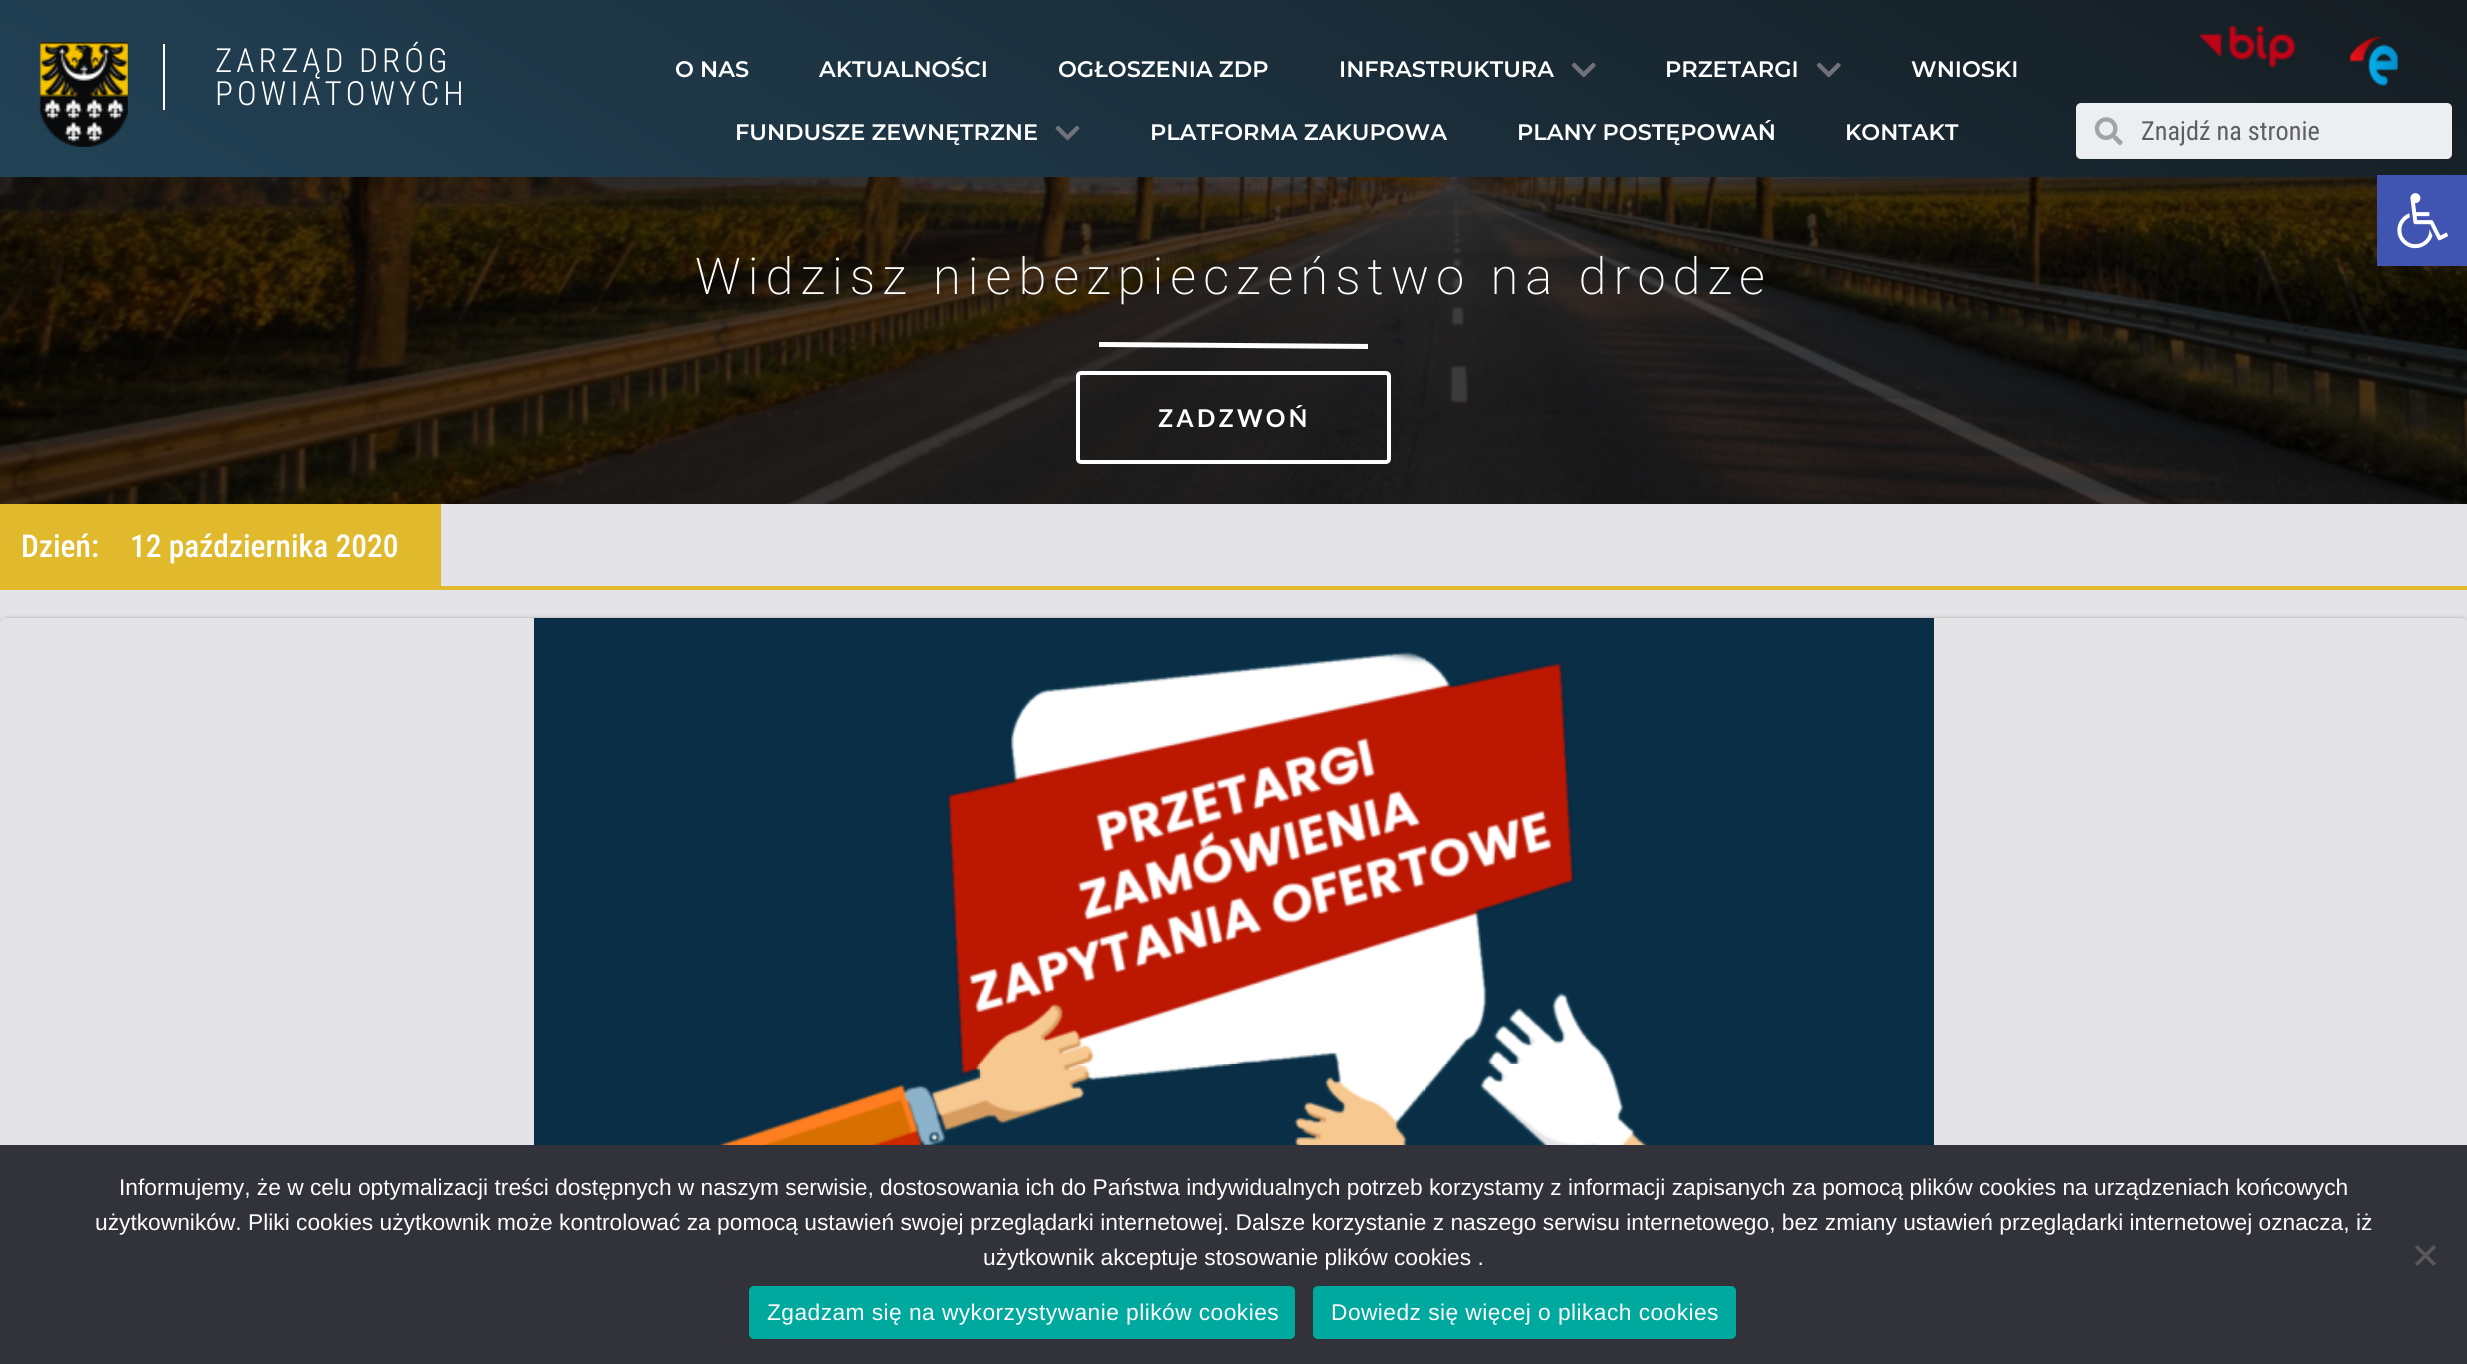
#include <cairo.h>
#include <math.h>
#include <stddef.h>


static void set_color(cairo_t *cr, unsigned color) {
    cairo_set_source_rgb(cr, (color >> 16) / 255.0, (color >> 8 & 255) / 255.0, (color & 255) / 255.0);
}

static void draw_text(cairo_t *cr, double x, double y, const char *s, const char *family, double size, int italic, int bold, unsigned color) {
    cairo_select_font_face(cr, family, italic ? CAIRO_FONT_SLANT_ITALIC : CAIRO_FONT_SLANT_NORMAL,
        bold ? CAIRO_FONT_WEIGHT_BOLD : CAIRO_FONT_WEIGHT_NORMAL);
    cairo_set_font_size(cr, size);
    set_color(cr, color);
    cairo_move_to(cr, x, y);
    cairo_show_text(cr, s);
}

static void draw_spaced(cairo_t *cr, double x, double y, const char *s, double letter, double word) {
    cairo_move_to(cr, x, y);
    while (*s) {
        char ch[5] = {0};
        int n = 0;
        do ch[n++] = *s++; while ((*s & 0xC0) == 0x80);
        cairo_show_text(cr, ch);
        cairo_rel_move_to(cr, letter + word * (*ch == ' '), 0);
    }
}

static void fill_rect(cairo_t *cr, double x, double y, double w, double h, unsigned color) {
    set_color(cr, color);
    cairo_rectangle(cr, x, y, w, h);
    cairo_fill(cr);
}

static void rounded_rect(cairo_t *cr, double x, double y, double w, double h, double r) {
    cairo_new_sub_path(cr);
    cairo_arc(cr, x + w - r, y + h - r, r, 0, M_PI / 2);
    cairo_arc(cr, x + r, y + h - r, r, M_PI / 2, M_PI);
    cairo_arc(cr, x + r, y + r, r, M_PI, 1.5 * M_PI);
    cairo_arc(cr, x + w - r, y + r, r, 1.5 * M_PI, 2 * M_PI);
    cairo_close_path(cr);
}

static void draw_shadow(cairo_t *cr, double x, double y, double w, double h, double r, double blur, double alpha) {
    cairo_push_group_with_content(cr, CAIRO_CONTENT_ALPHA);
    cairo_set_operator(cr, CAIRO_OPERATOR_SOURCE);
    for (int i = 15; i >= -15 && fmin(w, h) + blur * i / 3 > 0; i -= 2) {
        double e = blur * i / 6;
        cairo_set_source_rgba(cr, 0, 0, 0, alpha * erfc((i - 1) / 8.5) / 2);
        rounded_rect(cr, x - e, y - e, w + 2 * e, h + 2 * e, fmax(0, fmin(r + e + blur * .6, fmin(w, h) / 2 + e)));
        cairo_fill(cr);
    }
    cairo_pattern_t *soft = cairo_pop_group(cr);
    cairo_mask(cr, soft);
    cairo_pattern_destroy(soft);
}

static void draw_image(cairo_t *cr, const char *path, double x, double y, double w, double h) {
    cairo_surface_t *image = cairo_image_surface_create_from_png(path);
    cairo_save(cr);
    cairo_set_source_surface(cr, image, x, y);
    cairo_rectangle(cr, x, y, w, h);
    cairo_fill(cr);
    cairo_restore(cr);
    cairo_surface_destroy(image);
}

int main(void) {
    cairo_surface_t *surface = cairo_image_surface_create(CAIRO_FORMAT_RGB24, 2467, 1364);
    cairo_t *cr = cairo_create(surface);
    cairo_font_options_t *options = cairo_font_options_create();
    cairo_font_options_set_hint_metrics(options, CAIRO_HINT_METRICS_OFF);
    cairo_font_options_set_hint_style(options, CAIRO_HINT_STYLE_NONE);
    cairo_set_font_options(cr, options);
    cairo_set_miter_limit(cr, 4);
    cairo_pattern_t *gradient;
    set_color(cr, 0xE4E4E7);
    cairo_paint(cr);
    gradient = cairo_pattern_create_linear(1580, -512, 887, 689);
    cairo_pattern_add_color_stop_rgba(gradient, 0, 0.165, 0.224, 0.263, 1);
    cairo_pattern_add_color_stop_rgba(gradient, 1, 0.267, 0.522, 0.682, 1);
    cairo_set_source(cr, gradient);
    cairo_pattern_destroy(gradient);
    cairo_rectangle(cr, 0, 0, 2467, 177);
    cairo_fill(cr);
    cairo_set_source_rgba(cr, 0, 0, 0, 0.5);
    cairo_rectangle(cr, 0, 0, 2467, 177);
    cairo_fill(cr);
    draw_image(cr, "assets/img1.png", 39, 42, 89, 105);
    fill_rect(cr, 163, 44, 2, 66, 0xFFFFFF);
    cairo_select_font_face(cr, "Roboto Condensed Light", CAIRO_FONT_SLANT_NORMAL, CAIRO_FONT_WEIGHT_NORMAL);
    cairo_set_font_size(cr, 33.25);
    draw_spaced(cr, 215, 72, "ZARZĄD DRÓG", 4, 0);
    draw_spaced(cr, 215, 105, "POWIATOWYCH", 4, 0);
    draw_text(cr, 675, 77, "O NAS", "Montserrat SemiBold", 22.4, 0, 0, 0xFFFFFF);
    draw_text(cr, 819, 77, "AKTUALNOŚCI", "Montserrat SemiBold", 22.4, 0, 0, 0xFFFFFF);
    draw_text(cr, 1058, 77, "OGŁOSZENIA ZDP", "Montserrat SemiBold", 22.4, 0, 0, 0xFFFFFF);
    draw_text(cr, 1339, 77, "INFRASTRUKTURA", "Montserrat SemiBold", 22.4, 0, 0, 0xFFFFFF);
    draw_image(cr, "assets/img2.png", 1571, 62, 25, 16);
    draw_text(cr, 1665, 77, "PRZETARGI", "Montserrat SemiBold", 22.4, 0, 0, 0xFFFFFF);
    draw_image(cr, "assets/img3.png", 1816, 62, 25, 16);
    draw_text(cr, 1911, 77, "WNIOSKI", "Montserrat SemiBold", 22.4, 0, 0, 0xFFFFFF);
    draw_text(cr, 735, 140, "FUNDUSZE ZEWNĘTRZNE", "Montserrat SemiBold", 22.4, 0, 0, 0xFFFFFF);
    draw_image(cr, "assets/img4.png", 1055, 125, 25, 16);
    draw_text(cr, 1150, 140, "PLATFORMA ZAKUPOWA", "Montserrat SemiBold", 22.4, 0, 0, 0xFFFFFF);
    draw_text(cr, 1517, 140, "PLANY POSTĘPOWAŃ", "Montserrat SemiBold", 22.4, 0, 0, 0xFFFFFF);
    draw_text(cr, 1845, 140, "KONTAKT", "Montserrat SemiBold", 22.4, 0, 0, 0xFFFFFF);
    draw_image(cr, "assets/img5.png", 2198, 24, 99, 45);
    draw_image(cr, "assets/img6.png", 2349, 36, 49, 50);
    set_color(cr, 0xECEEEF);
    rounded_rect(cr, 2076, 103, 376, 56, 5);
    cairo_fill(cr);
    draw_image(cr, "assets/img7.png", 2094, 117, 29, 29);
    draw_text(cr, 2141, 140, "Znajdź na stronie", "Roboto Condensed", 26.25, 0, 0, 0x5E5F60);
    draw_image(cr, "assets/img8.png", 0, 177, 2467, 327);
    cairo_select_font_face(cr, "Roboto ExtraLight", CAIRO_FONT_SLANT_NORMAL, CAIRO_FONT_WEIGHT_NORMAL);
    cairo_set_font_size(cr, 50.75);
    set_color(cr, 0xFFFFFF);
    draw_spaced(cr, 695, 294, "Widzisz niebezpieczeństwo na drodze", 7, 0);
    cairo_new_path(cr);
    cairo_move_to(cr, 1099, 342);
    cairo_line_to(cr, 1368, 344);
    cairo_line_to(cr, 1368, 349);
    cairo_line_to(cr, 1099, 347);
    cairo_close_path(cr);
    cairo_fill(cr);
    rounded_rect(cr, 1078, 373, 311, 89, 3);
    cairo_set_line_width(cr, 4);
    cairo_stroke(cr);
    cairo_select_font_face(cr, "Lato", CAIRO_FONT_SLANT_NORMAL, CAIRO_FONT_WEIGHT_BOLD);
    cairo_set_font_size(cr, 24.5);
    draw_spaced(cr, 1158, 427, "ZADZWOŃ", 3.25, 0);
    fill_rect(cr, 2377, 175, 90, 91, 0x4054B2);
    draw_image(cr, "assets/img9.png", 2397, 193, 52, 56);
    fill_rect(cr, 0, 586, 2467, 4, 0xE0B92C);
    fill_rect(cr, 0, 504, 441, 82, 0xE0B92C);
    draw_text(cr, 21, 557, "Dzień:", "Roboto Condensed Medium", 31.5, 0, 0, 0xFFFFFF);
    draw_text(cr, 130, 557, "12 października 2020", "Roboto Condensed Medium", 31.5, 0, 0, 0xFFFFFF);
    cairo_save(cr);
    cairo_set_fill_rule(cr, CAIRO_FILL_RULE_EVEN_ODD);
    cairo_new_path(cr);
    cairo_move_to(cr, 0, 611);
    cairo_line_to(cr, 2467, 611);
    cairo_line_to(cr, 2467, 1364);
    cairo_line_to(cr, 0, 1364);
    cairo_close_path(cr);
    cairo_move_to(cr, 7, 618);
    cairo_line_to(cr, 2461, 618);
    cairo_curve_to(cr, 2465, 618, 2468, 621, 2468, 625);
    cairo_line_to(cr, 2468, 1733);
    cairo_curve_to(cr, 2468, 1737, 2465, 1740, 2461, 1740);
    cairo_line_to(cr, 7, 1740);
    cairo_curve_to(cr, 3, 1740, 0, 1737, 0, 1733);
    cairo_line_to(cr, 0, 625);
    cairo_curve_to(cr, 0, 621, 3, 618, 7, 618);
    cairo_close_path(cr);
    cairo_clip(cr);
    set_color(cr, 0x000000);
    draw_shadow(cr, 0, 618, 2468, 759, 7, 2, 0.24);
    cairo_restore(cr);
    draw_image(cr, "assets/img10.png", 534, 618, 1400, 527);
    fill_rect(cr, 0, 1145, 2467, 219, 0x32323A);
    draw_text(cr, 119, 1195, "Informujemy, że w celu optymalizacji treści dostępnych w naszym serwisie, dostosowania ich do Państwa indywidualnych potrzeb korzystamy z informacji zapisanych za pomocą plików cookies na urządzeniach końcowych", "Liberation Sans", 22.75, 0, 0, 0xFFFFFF);
    draw_text(cr, 95, 1230, "użytkowników. Pliki cookies użytkownik może kontrolować za pomocą ustawień swojej przeglądarki internetowej. Dalsze korzystanie z naszego serwisu internetowego, bez zmiany ustawień przeglądarki internetowej oznacza, iż", "Liberation Sans", 22.75, 0, 0, 0xFFFFFF);
    draw_text(cr, 983, 1265, "użytkownik akceptuje stosowanie plików cookies .", "Liberation Sans", 22.75, 0, 0, 0xFFFFFF);
    set_color(cr, 0x59595D);
    cairo_new_path(cr);
    cairo_move_to(cr, 2433.5, 1245);
    cairo_line_to(cr, 2436, 1247.5);
    cairo_line_to(cr, 2417.5, 1266);
    cairo_line_to(cr, 2415, 1263.5);
    cairo_close_path(cr);
    cairo_fill(cr);
    cairo_new_path(cr);
    cairo_move_to(cr, 2415, 1247.5);
    cairo_line_to(cr, 2417.5, 1245);
    cairo_line_to(cr, 2436, 1263.5);
    cairo_line_to(cr, 2433.5, 1266);
    cairo_close_path(cr);
    cairo_fill(cr);
    set_color(cr, 0x00A99D);
    rounded_rect(cr, 749, 1286, 546, 53, 5);
    cairo_fill(cr);
    set_color(cr, 0xFFFFFF);
    draw_spaced(cr, 767, 1320, "Zgadzam się na wykorzystywanie plików cookies", 0.45, 0);
    set_color(cr, 0x00A99D);
    rounded_rect(cr, 1313, 1286, 423, 53, 5);
    cairo_fill(cr);
    set_color(cr, 0xFFFFFF);
    draw_spaced(cr, 1331, 1320, "Dowiedz się więcej o plikach cookies", 0.45, 0);
    cairo_surface_write_to_png(surface, "output.png");
    cairo_font_options_destroy(options);
    cairo_destroy(cr);
    cairo_surface_destroy(surface);
    return 0;
}
